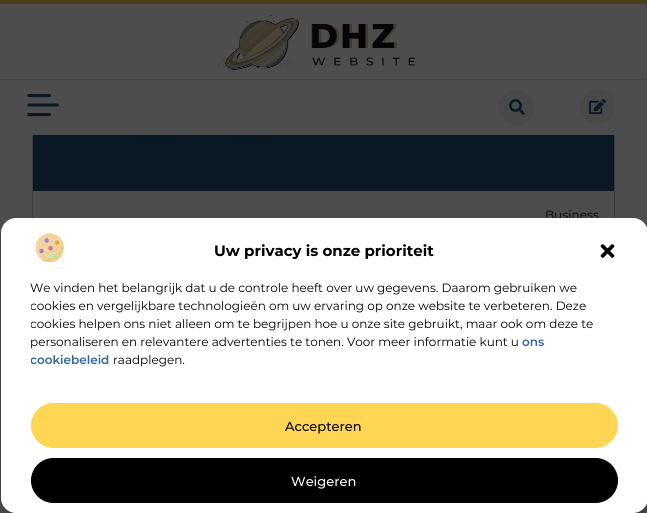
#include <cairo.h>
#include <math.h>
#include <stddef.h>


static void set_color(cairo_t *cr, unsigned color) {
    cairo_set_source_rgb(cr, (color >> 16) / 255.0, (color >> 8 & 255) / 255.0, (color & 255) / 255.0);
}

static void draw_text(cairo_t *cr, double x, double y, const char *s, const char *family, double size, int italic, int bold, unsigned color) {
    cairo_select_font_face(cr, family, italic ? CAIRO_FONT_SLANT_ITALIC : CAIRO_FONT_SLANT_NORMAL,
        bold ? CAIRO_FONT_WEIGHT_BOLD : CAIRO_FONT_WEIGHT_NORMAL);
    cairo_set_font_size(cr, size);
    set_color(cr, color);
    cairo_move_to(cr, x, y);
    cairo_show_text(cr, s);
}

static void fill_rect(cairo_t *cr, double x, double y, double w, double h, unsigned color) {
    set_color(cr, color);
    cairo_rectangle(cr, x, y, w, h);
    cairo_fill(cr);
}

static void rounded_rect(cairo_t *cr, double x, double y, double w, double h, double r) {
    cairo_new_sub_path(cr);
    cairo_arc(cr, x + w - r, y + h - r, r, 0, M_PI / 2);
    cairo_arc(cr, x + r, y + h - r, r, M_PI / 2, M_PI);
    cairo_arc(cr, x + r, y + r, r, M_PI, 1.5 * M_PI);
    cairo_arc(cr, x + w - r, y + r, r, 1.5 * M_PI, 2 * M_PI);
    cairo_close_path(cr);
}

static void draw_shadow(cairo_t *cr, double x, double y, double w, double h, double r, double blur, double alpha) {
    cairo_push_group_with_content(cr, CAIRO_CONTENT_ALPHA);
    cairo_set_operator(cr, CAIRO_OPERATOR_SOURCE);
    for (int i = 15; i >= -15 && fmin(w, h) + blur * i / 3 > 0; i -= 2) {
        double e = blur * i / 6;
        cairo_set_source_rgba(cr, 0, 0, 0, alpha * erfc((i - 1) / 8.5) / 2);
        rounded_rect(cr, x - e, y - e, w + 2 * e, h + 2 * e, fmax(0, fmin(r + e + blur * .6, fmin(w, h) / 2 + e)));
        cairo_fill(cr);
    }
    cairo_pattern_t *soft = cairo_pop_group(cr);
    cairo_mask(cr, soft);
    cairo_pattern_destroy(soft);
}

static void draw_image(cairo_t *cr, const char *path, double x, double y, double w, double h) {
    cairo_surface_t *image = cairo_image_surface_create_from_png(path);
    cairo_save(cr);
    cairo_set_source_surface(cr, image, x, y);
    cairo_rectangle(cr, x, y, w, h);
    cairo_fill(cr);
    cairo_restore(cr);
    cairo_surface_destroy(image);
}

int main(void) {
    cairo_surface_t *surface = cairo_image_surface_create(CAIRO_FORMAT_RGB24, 647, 513);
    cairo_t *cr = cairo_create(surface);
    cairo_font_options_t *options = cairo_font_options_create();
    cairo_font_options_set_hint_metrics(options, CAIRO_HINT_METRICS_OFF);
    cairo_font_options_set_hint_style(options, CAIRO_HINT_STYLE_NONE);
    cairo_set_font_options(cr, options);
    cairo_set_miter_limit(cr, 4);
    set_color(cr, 0x4D4D4D);
    cairo_paint(cr);
    cairo_rectangle(cr, 32.5, -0.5, 582, 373);
    set_color(cr, 0x3B3B3B);
    cairo_set_line_width(cr, 1);
    cairo_stroke(cr);
    fill_rect(cr, 0, 0, 647, 4, 0x483E1C);
    fill_rect(cr, 32, 4, 583, 75, 0x4D4D4D);
    fill_rect(cr, 0, 79, 647, 1, 0x474439);
    draw_image(cr, "assets/img1.png", 218, 15, 198, 55);
    fill_rect(cr, 32, 80, 583, 55, 0x4D4D4D);
    draw_image(cr, "assets/img2.png", 27, 93, 32, 24);
    set_color(cr, 0x494949);
    cairo_arc(cr, 516.5, 107.5, 17.5, 0, 2 * M_PI);
    cairo_fill(cr);
    draw_image(cr, "assets/img3.png", 509, 99, 16, 16);
    cairo_arc(cr, 597.5, 106.5, 17.5, 0, 2 * M_PI);
    cairo_fill(cr);
    draw_image(cr, "assets/img4.png", 589, 99, 17, 16);
    draw_image(cr, "assets/img5.png", 33, 135, 581, 56);
    draw_text(cr, 545, 219, "Business", "Montserrat Medium", 12, 0, 0, 0x141414);
    cairo_save(cr);
    cairo_set_fill_rule(cr, CAIRO_FILL_RULE_EVEN_ODD);
    cairo_new_path(cr);
    cairo_move_to(cr, 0, 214);
    cairo_line_to(cr, 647, 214);
    cairo_line_to(cr, 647, 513);
    cairo_line_to(cr, 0, 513);
    cairo_close_path(cr);
    cairo_move_to(cr, 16, 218);
    cairo_line_to(cr, 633, 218);
    cairo_curve_to(cr, 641.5, 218, 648, 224.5, 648, 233);
    cairo_line_to(cr, 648, 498);
    cairo_curve_to(cr, 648, 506.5, 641.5, 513, 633, 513);
    cairo_line_to(cr, 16, 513);
    cairo_curve_to(cr, 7.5, 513, 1, 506.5, 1, 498);
    cairo_line_to(cr, 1, 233);
    cairo_curve_to(cr, 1, 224.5, 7.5, 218, 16, 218);
    cairo_close_path(cr);
    cairo_clip(cr);
    set_color(cr, 0x000000);
    draw_shadow(cr, 1, 224, 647, 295, 15, 3, 0.23);
    cairo_restore(cr);
    set_color(cr, 0xFFFFFF);
    rounded_rect(cr, 1, 218, 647, 295, 15);
    cairo_fill(cr);
    draw_image(cr, "assets/img6.png", 35, 233, 30, 29);
    draw_text(cr, 214, 256, "Uw privacy is onze prioriteit", "Montserrat", 15, 0, 1, 0x000000);
    draw_image(cr, "assets/img7.png", 600, 244, 15, 14);
    draw_text(cr, 30, 292, "We vinden het belangrijk dat u de controle heeft over uw gegevens. Daarom gebruiken we", "Montserrat", 12, 0, 0, 0x000000);
    cairo_save(cr);
    cairo_rectangle(cr, 31, 279, 587, 104);
    cairo_clip(cr);
    draw_text(cr, 30, 310, "cookies en vergelijkbare technologieën om uw ervaring op onze website te verbeteren. Deze", "Montserrat", 12, 0, 0, 0x000000);
    draw_text(cr, 30, 328, "cookies helpen ons niet alleen om te begrijpen hoe u onze site gebruikt, maar ook om deze te", "Montserrat", 12, 0, 0, 0x000000);
    cairo_restore(cr);
    draw_text(cr, 30, 346, "personaliseren en relevantere advertenties te tonen. Voor meer informatie kunt u", "Montserrat", 12, 0, 0, 0x000000);
    draw_text(cr, 522, 346, "ons", "Montserrat SemiBold", 12, 0, 0, 0x33669C);
    cairo_save(cr);
    cairo_rectangle(cr, 31, 279, 587, 104);
    cairo_clip(cr);
    draw_text(cr, 30, 364, "cookiebeleid", "Montserrat SemiBold", 12, 0, 0, 0x33669C);
    cairo_restore(cr);
    draw_text(cr, 113, 364, "raadplegen.", "Montserrat", 12, 0, 0, 0x000000);
    set_color(cr, 0xFFD653);
    rounded_rect(cr, 31.5, 403.5, 586, 44, 22);
    cairo_fill_preserve(cr);
    cairo_stroke(cr);
    draw_text(cr, 285, 431, "Accepteren", "Montserrat Medium", 13, 0, 0, 0x000000);
    rounded_rect(cr, 31.5, 458.5, 586, 44, 22);
    cairo_fill_preserve(cr);
    cairo_stroke(cr);
    draw_text(cr, 291, 486, "Weigeren", "Montserrat Medium", 13, 0, 0, 0xFFFFFF);
    cairo_surface_write_to_png(surface, "output.png");
    cairo_font_options_destroy(options);
    cairo_destroy(cr);
    cairo_surface_destroy(surface);
    return 0;
}
